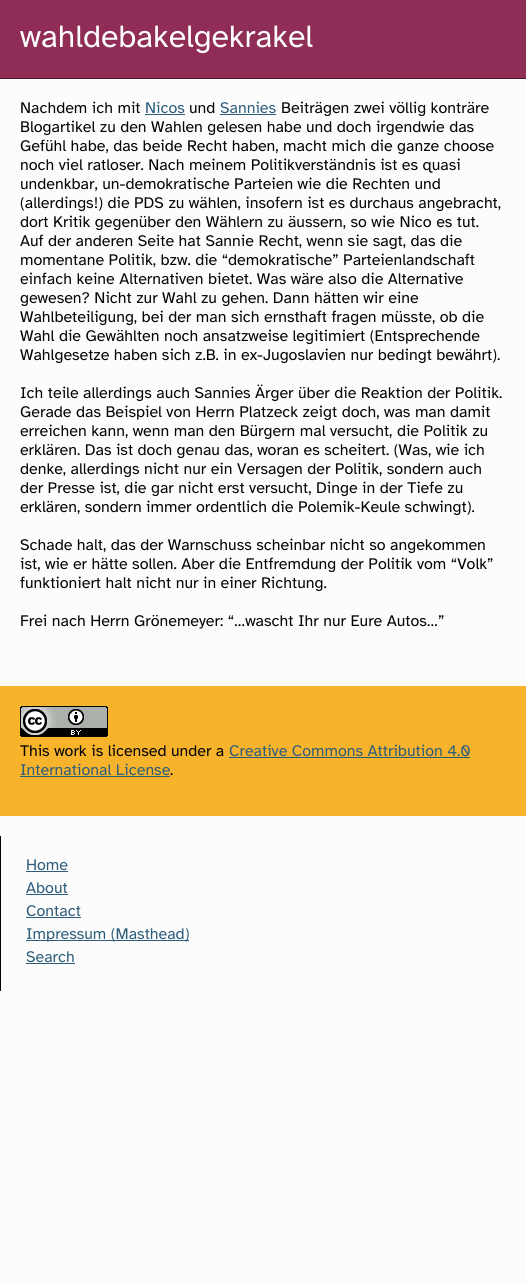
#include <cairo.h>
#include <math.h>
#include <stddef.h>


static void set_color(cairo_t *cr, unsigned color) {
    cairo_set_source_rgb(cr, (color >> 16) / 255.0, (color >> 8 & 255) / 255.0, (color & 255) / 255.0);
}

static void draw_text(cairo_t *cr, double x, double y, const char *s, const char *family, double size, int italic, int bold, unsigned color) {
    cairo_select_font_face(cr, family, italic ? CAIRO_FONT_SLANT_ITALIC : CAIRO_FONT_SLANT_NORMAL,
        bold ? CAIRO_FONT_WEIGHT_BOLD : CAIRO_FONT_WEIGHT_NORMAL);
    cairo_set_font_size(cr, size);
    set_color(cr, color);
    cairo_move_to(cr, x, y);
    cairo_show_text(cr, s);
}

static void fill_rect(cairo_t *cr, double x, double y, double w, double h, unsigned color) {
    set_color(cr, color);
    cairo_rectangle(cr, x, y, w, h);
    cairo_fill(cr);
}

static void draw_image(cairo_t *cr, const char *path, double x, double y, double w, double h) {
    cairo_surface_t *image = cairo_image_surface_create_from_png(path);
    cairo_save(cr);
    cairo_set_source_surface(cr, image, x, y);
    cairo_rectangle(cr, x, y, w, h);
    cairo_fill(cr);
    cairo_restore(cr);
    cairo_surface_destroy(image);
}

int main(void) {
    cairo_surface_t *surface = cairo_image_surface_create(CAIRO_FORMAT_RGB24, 526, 1285);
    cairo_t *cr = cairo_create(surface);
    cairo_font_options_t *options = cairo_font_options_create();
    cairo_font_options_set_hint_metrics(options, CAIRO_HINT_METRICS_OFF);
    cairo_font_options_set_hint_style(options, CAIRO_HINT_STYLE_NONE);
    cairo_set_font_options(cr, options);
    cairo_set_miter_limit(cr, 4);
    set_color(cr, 0xFCFCFC);
    cairo_paint(cr);
    fill_rect(cr, 0, 0, 526, 78, 0x8F2D56);
    fill_rect(cr, 0, 78, 526, 1, 0x48172B);
    draw_text(cr, 20, 47, "wahldebakelgekrakel", "Atkinson Hyperlegible", 32, 0, 0, 0xFCFCFC);
    draw_text(cr, 20, 113, "Nachdem ich mit", "Atkinson Hyperlegible", 16, 0, 0, 0x040404);
    draw_text(cr, 145, 113, "Nicos", "Atkinson Hyperlegible", 16, 0, 0, 0x2D5D7B);
    fill_rect(cr, 145, 114, 40, 1, 0x2D5D7B);
    draw_text(cr, 189, 113, "und", "Atkinson Hyperlegible", 16, 0, 0, 0x040404);
    draw_text(cr, 220, 113, "Sannies", "Atkinson Hyperlegible", 16, 0, 0, 0x2D5D7B);
    fill_rect(cr, 220, 114, 56, 1, 0x2D5D7B);
    draw_text(cr, 281, 113, "Beiträgen zwei völlig konträre", "Atkinson Hyperlegible", 16, 0, 0, 0x040404);
    draw_text(cr, 20, 132, "Blogartikel zu den Wahlen gelesen habe und doch irgendwie das", "Atkinson Hyperlegible", 16, 0, 0, 0x040404);
    draw_text(cr, 20, 151, "Gefühl habe, das beide Recht haben, macht mich die ganze choose", "Atkinson Hyperlegible", 16, 0, 0, 0x040404);
    draw_text(cr, 20, 170, "noch viel ratloser. Nach meinem Politikverständnis ist es quasi", "Atkinson Hyperlegible", 16, 0, 0, 0x040404);
    draw_text(cr, 20, 189, "undenkbar, un-demokratische Parteien wie die Rechten und", "Atkinson Hyperlegible", 16, 0, 0, 0x040404);
    draw_text(cr, 20, 208, "(allerdings!) die PDS zu wählen, insofern ist es durchaus angebracht,", "Atkinson Hyperlegible", 16, 0, 0, 0x040404);
    draw_text(cr, 20, 227, "dort Kritik gegenüber den Wählern zu äussern, so wie Nico es tut.", "Atkinson Hyperlegible", 16, 0, 0, 0x040404);
    draw_text(cr, 20, 246, "Auf der anderen Seite hat Sannie Recht, wenn sie sagt, das die", "Atkinson Hyperlegible", 16, 0, 0, 0x040404);
    draw_text(cr, 20, 265, "momentane Politik, bzw. die “demokratische” Parteienlandschaft", "Atkinson Hyperlegible", 16, 0, 0, 0x040404);
    draw_text(cr, 20, 284, "einfach keine Alternativen bietet. Was wäre also die Alternative", "Atkinson Hyperlegible", 16, 0, 0, 0x040404);
    draw_text(cr, 20, 303, "gewesen? Nicht zur Wahl zu gehen. Dann hätten wir eine", "Atkinson Hyperlegible", 16, 0, 0, 0x040404);
    draw_text(cr, 20, 322, "Wahlbeteiligung, bei der man sich ernsthaft fragen müsste, ob die", "Atkinson Hyperlegible", 16, 0, 0, 0x040404);
    draw_text(cr, 20, 341, "Wahl die Gewählten noch ansatzweise legitimiert (Entsprechende", "Atkinson Hyperlegible", 16, 0, 0, 0x040404);
    draw_text(cr, 20, 360, "Wahlgesetze haben sich z.B. in ex-Jugoslavien nur bedingt bewährt).", "Atkinson Hyperlegible", 16, 0, 0, 0x040404);
    draw_text(cr, 20, 398, "Ich teile allerdings auch Sannies Ärger über die Reaktion der Politik.", "Atkinson Hyperlegible", 16, 0, 0, 0x040404);
    draw_text(cr, 20, 417, "Gerade das Beispiel von Herrn Platzeck zeigt doch, was man damit", "Atkinson Hyperlegible", 16, 0, 0, 0x040404);
    draw_text(cr, 20, 436, "erreichen kann, wenn man den Bürgern mal versucht, die Politik zu", "Atkinson Hyperlegible", 16, 0, 0, 0x040404);
    draw_text(cr, 20, 455, "erklären. Das ist doch genau das, woran es scheitert. (Was, wie ich", "Atkinson Hyperlegible", 16, 0, 0, 0x040404);
    draw_text(cr, 20, 474, "denke, allerdings nicht nur ein Versagen der Politik, sondern auch", "Atkinson Hyperlegible", 16, 0, 0, 0x040404);
    draw_text(cr, 20, 493, "der Presse ist, die gar nicht erst versucht, Dinge in der Tiefe zu", "Atkinson Hyperlegible", 16, 0, 0, 0x040404);
    draw_text(cr, 20, 512, "erklären, sondern immer ordentlich die Polemik-Keule schwingt).", "Atkinson Hyperlegible", 16, 0, 0, 0x040404);
    draw_text(cr, 20, 550, "Schade halt, das der Warnschuss scheinbar nicht so angekommen", "Atkinson Hyperlegible", 16, 0, 0, 0x040404);
    draw_text(cr, 20, 569, "ist, wie er hätte sollen. Aber die Entfremdung der Politik vom “Volk”", "Atkinson Hyperlegible", 16, 0, 0, 0x040404);
    draw_text(cr, 20, 588, "funktioniert halt nicht nur in einer Richtung.", "Atkinson Hyperlegible", 16, 0, 0, 0x040404);
    draw_text(cr, 20, 626, "Frei nach Herrn Grönemeyer: “…wascht Ihr nur Eure Autos…”", "Atkinson Hyperlegible", 16, 0, 0, 0x040404);
    fill_rect(cr, 0, 686, 526, 130, 0xF7B32B);
    draw_image(cr, "assets/img1.png", 20, 706, 88, 31);
    draw_text(cr, 20, 756, "This work is licensed under a", "Atkinson Hyperlegible", 16, 0, 0, 0x040404);
    draw_text(cr, 229, 756, "Creative Commons Attribution 4.0", "Atkinson Hyperlegible", 16, 0, 0, 0x2D5D7B);
    fill_rect(cr, 229, 757, 241, 1, 0x2D5D7B);
    draw_text(cr, 20, 775, "International License", "Atkinson Hyperlegible", 16, 0, 0, 0x2D5D7B);
    fill_rect(cr, 20, 776, 150, 1, 0x2D5D7B);
    draw_text(cr, 170, 775, ".", "Atkinson Hyperlegible", 16, 0, 0, 0x040404);
    fill_rect(cr, 0, 836, 1, 155, 0x040404);
    draw_text(cr, 26, 870, "Home", "Atkinson Hyperlegible", 16, 0, 0, 0x2D5D7B);
    fill_rect(cr, 26, 871, 42, 1, 0x2D5D7B);
    draw_text(cr, 26, 893, "About", "Atkinson Hyperlegible", 16, 0, 0, 0x2D5D7B);
    fill_rect(cr, 26, 894, 42, 1, 0x2D5D7B);
    draw_text(cr, 26, 916, "Contact", "Atkinson Hyperlegible", 16, 0, 0, 0x2D5D7B);
    fill_rect(cr, 26, 917, 55, 1, 0x2D5D7B);
    fill_rect(cr, 26, 940, 163, 1, 0x2D5D7B);
    draw_text(cr, 26, 939, "Impressum (Masthead)", "Atkinson Hyperlegible", 16, 0, 0, 0x2D5D7B);
    draw_text(cr, 26, 962, "Search", "Atkinson Hyperlegible", 16, 0, 0, 0x2D5D7B);
    fill_rect(cr, 26, 963, 49, 1, 0x2D5D7B);
    cairo_surface_write_to_png(surface, "output.png");
    cairo_font_options_destroy(options);
    cairo_destroy(cr);
    cairo_surface_destroy(surface);
    return 0;
}
